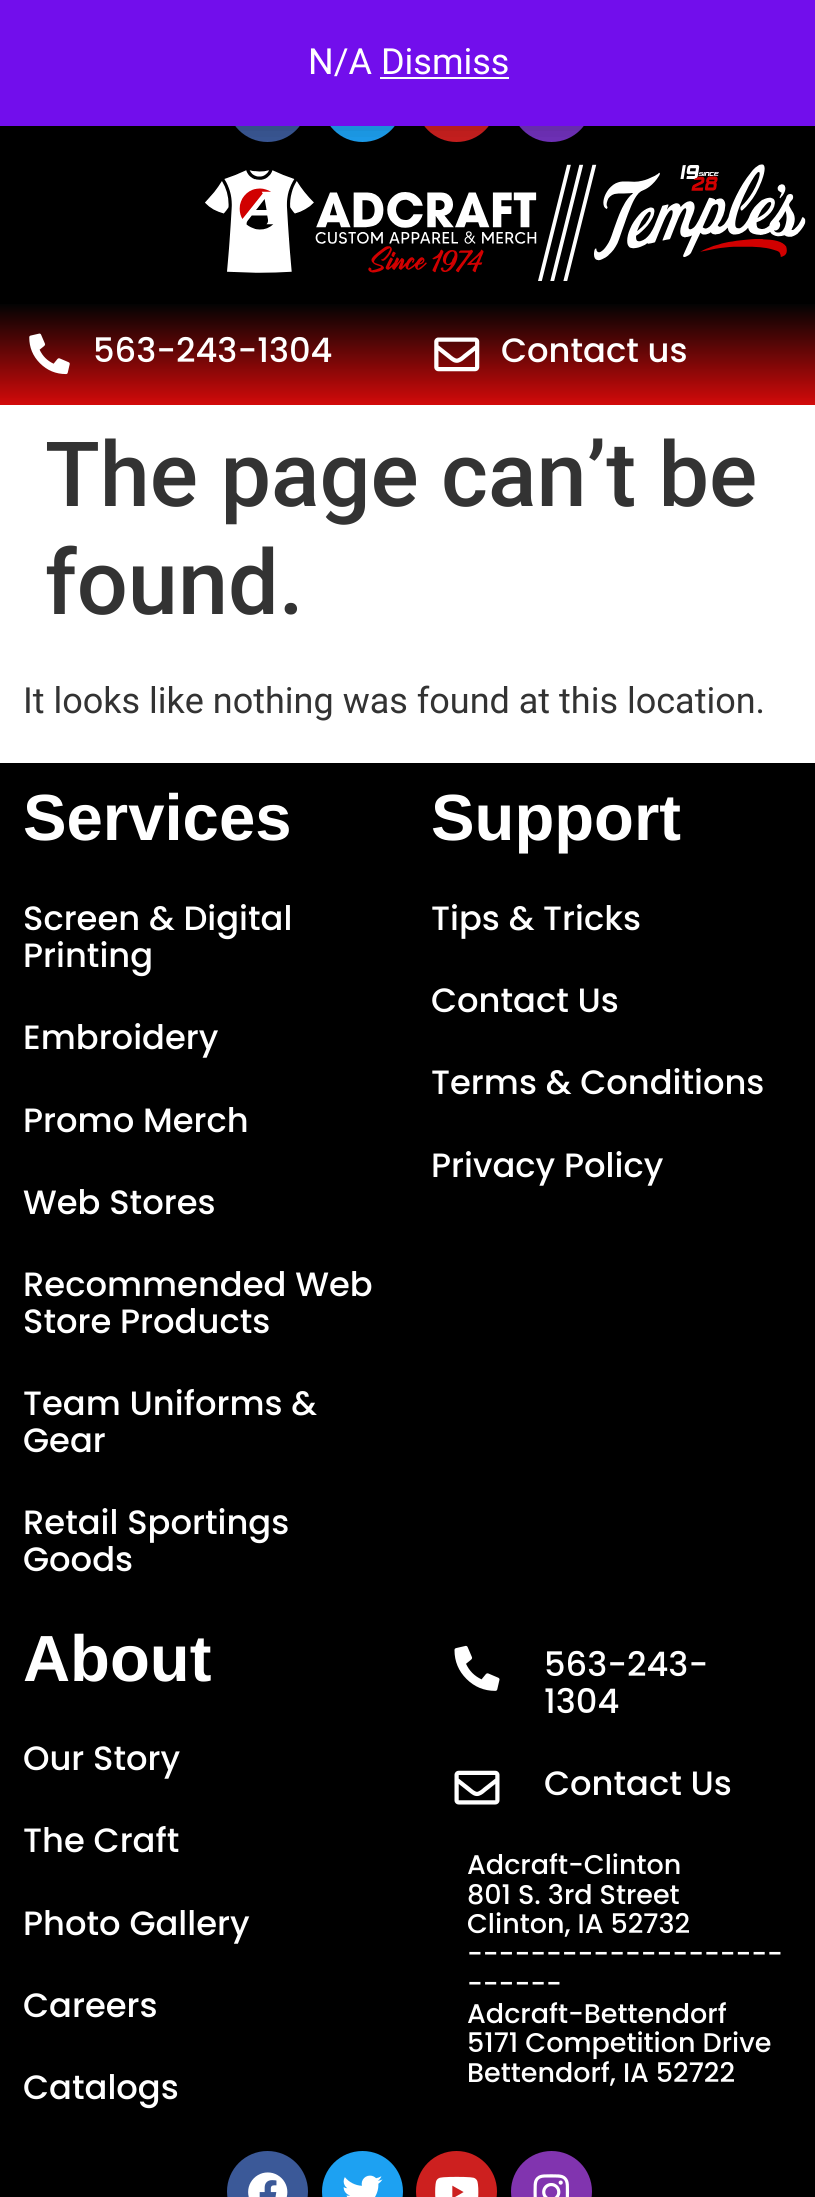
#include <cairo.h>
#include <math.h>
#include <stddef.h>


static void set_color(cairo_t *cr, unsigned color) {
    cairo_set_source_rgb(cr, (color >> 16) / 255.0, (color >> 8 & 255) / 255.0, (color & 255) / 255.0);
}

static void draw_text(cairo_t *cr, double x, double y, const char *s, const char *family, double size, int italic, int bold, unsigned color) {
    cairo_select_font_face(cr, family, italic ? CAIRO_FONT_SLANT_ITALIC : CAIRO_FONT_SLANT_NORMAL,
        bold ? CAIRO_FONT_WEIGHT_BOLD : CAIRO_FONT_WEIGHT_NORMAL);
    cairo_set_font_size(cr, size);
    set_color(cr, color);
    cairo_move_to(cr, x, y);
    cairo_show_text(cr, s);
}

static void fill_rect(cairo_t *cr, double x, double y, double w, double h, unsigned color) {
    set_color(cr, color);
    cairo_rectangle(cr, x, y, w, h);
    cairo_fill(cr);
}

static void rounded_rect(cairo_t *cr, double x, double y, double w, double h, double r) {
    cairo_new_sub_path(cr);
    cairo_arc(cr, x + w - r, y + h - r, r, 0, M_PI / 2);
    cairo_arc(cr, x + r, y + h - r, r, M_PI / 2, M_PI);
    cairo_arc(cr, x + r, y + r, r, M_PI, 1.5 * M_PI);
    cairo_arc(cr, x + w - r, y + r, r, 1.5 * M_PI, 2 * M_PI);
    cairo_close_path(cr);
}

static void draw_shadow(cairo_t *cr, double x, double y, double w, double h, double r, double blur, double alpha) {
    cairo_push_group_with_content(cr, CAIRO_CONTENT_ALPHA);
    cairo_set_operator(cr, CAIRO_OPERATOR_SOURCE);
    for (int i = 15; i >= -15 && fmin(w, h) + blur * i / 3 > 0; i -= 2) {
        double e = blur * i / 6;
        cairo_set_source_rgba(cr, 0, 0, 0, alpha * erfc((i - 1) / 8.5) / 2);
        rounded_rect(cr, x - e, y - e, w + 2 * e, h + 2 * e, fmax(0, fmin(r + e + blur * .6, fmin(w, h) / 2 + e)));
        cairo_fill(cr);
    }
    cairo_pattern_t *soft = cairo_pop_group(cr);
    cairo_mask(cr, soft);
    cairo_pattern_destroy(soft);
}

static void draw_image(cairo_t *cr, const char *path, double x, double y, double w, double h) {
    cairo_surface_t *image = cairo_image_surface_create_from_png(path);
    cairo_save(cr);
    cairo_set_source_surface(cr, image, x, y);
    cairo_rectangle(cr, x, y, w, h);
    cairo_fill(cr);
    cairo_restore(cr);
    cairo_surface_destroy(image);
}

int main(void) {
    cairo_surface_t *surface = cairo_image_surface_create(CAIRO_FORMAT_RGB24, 815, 2197);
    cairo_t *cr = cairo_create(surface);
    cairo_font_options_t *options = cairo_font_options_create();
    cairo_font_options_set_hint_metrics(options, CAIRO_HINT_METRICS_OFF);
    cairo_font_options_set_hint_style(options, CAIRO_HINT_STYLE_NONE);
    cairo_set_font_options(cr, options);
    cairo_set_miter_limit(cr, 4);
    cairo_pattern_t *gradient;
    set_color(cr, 0xFFFFFF);
    cairo_paint(cr);
    fill_rect(cr, 0, 126, 815, 178, 0x000000);
    set_color(cr, 0x3B5998);
    cairo_arc(cr, 267.5, 101.5, 40.5, 0, 2 * M_PI);
    cairo_fill(cr);
    set_color(cr, 0x1DA1F2);
    cairo_arc(cr, 362.5, 101.5, 40.5, 0, 2 * M_PI);
    cairo_fill(cr);
    set_color(cr, 0xCD201F);
    cairo_arc(cr, 456.5, 101.5, 40.5, 0, 2 * M_PI);
    cairo_fill(cr);
    set_color(cr, 0x7232BD);
    cairo_arc(cr, 551.5, 101.5, 40.5, 0, 2 * M_PI);
    cairo_fill(cr);
    draw_image(cr, "assets/img1.png", 205, 164, 601, 117);
    set_color(cr, 0x000000);
    draw_shadow(cr, 0, 2, 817, 126, 0, 18, 0.2);
    fill_rect(cr, 0, 0, 815, 126, 0x720EEC);
    draw_text(cr, 308, 74, "N/A Dismiss", "Roboto", 36, 0, 0, 0xFFFFFF);
    fill_rect(cr, 380, 77, 129, 2, 0xFCFBFE);
    gradient = cairo_pattern_create_linear(408, 405, 408, 304);
    cairo_pattern_add_color_stop_rgba(gradient, 0, 0.827, 0.039, 0.039, 1);
    cairo_pattern_add_color_stop_rgba(gradient, 1, 0.012, 0.012, 0.012, 1);
    cairo_set_source(cr, gradient);
    cairo_pattern_destroy(gradient);
    cairo_rectangle(cr, 0, 304, 815, 101);
    cairo_fill(cr);
    draw_image(cr, "assets/img2.png", 29, 333, 41, 42);
    draw_text(cr, 93, 362, "563-243-1304", "Poppins Medium", 33.75, 0, 0, 0xFFFFFF);
    draw_image(cr, "assets/img3.png", 434, 337, 46, 35);
    draw_text(cr, 501, 362, "Contact us", "Poppins Medium", 33.75, 0, 0, 0xFFFFFF);
    draw_text(cr, 45, 506, "The page can’t be", "Roboto Medium", 90, 0, 0, 0x333333);
    draw_text(cr, 45, 614, "found.", "Roboto Medium", 90, 0, 0, 0x333333);
    draw_text(cr, 23, 713, "It looks like nothing was found at this location.", "Roboto", 36, 0, 0, 0x333333);
    fill_rect(cr, 0, 763, 815, 1434, 0x000000);
    draw_text(cr, 23, 840, "Services", "Liberation Sans", 65.25, 0, 1, 0xFFFFFF);
    draw_text(cr, 23, 930, "Screen & Digital", "Poppins Medium", 33.75, 0, 0, 0xFFFFFF);
    draw_text(cr, 23, 967, "Printing", "Poppins Medium", 33.75, 0, 0, 0xFFFFFF);
    draw_text(cr, 23, 1049, "Embroidery", "Poppins Medium", 33.75, 0, 0, 0xFFFFFF);
    draw_text(cr, 23, 1132, "Promo Merch", "Poppins Medium", 33.75, 0, 0, 0xFFFFFF);
    draw_text(cr, 23, 1214, "Web Stores", "Poppins Medium", 33.75, 0, 0, 0xFFFFFF);
    draw_text(cr, 23, 1296, "Recommended Web", "Poppins Medium", 33.75, 0, 0, 0xFFFFFF);
    draw_text(cr, 23, 1333, "Store Products", "Poppins Medium", 33.75, 0, 0, 0xFFFFFF);
    draw_text(cr, 23, 1415, "Team Uniforms &", "Poppins Medium", 33.75, 0, 0, 0xFFFFFF);
    draw_text(cr, 23, 1452, "Gear", "Poppins Medium", 33.75, 0, 0, 0xFFFFFF);
    draw_text(cr, 23, 1534, "Retail Sportings", "Poppins Medium", 33.75, 0, 0, 0xFFFFFF);
    draw_text(cr, 23, 1571, "Goods", "Poppins Medium", 33.75, 0, 0, 0xFFFFFF);
    draw_text(cr, 431, 840, "Support", "Liberation Sans", 65.25, 0, 1, 0xFFFFFF);
    draw_text(cr, 431, 930, "Tips & Tricks", "Poppins Medium", 33.75, 0, 0, 0xFFFFFF);
    draw_text(cr, 431, 1012, "Contact Us", "Poppins Medium", 33.75, 0, 0, 0xFFFFFF);
    draw_text(cr, 431, 1094, "Terms & Conditions", "Poppins Medium", 33.75, 0, 0, 0xFFFFFF);
    draw_text(cr, 431, 1177, "Privacy Policy", "Poppins Medium", 33.75, 0, 0, 0xFFFFFF);
    draw_text(cr, 23, 1681, "About", "Liberation Sans", 65.25, 0, 1, 0xFFFFFF);
    draw_text(cr, 23, 1770, "Our Story", "Poppins Medium", 33.75, 0, 0, 0xFFFFFF);
    draw_text(cr, 23, 1852, "The Craft", "Poppins Medium", 33.75, 0, 0, 0xFFFFFF);
    draw_text(cr, 23, 1935, "Photo Gallery", "Poppins Medium", 33.75, 0, 0, 0xFFFFFF);
    draw_text(cr, 23, 2017, "Careers", "Poppins Medium", 33.75, 0, 0, 0xFFFFFF);
    draw_text(cr, 23, 2099, "Catalogs", "Poppins Medium", 33.75, 0, 0, 0xFFFFFF);
    draw_image(cr, "assets/img4.png", 454, 1645, 46, 46);
    draw_text(cr, 544, 1676, "563-243-", "Poppins Medium", 33.75, 0, 0, 0xFFFFFF);
    draw_text(cr, 544, 1713, "1304", "Poppins Medium", 33.75, 0, 0, 0xFFFFFF);
    draw_image(cr, "assets/img5.png", 454, 1770, 46, 35);
    draw_text(cr, 544, 1795, "Contact Us", "Poppins Medium", 33.75, 0, 0, 0xFFFFFF);
    draw_text(cr, 467, 1874, "Adcraft-Clinton", "Poppins Medium", 27, 0, 0, 0xFFFFFF);
    draw_text(cr, 467, 1904, "801 S. 3rd Street", "Poppins Medium", 27, 0, 0, 0xFFFFFF);
    draw_text(cr, 467, 1933, "Clinton, IA 52732", "Poppins Medium", 27, 0, 0, 0xFFFFFF);
    draw_text(cr, 467, 1963, "--------------------", "Poppins Medium", 27, 0, 0, 0xFFFFFF);
    draw_text(cr, 467, 1993, "------", "Poppins Medium", 27, 0, 0, 0xFFFFFF);
    draw_text(cr, 467, 2023, "Adcraft-Bettendorf", "Poppins Medium", 27, 0, 0, 0xFFFFFF);
    draw_text(cr, 467, 2052, "5171 Competition Drive", "Poppins Medium", 27, 0, 0, 0xFFFFFF);
    draw_text(cr, 467, 2082, "Bettendorf, IA 52722", "Poppins Medium", 27, 0, 0, 0xFFFFFF);
    set_color(cr, 0x3B5998);
    cairo_new_path(cr);
    cairo_arc(cr, 267.5, 2191.5, 40.5, 0, 2 * M_PI);
    cairo_fill(cr);
    draw_image(cr, "assets/img6.png", 248, 2172, 40, 25);
    set_color(cr, 0x1DA1F2);
    cairo_arc(cr, 362.5, 2191.5, 40.5, 0, 2 * M_PI);
    cairo_fill(cr);
    draw_image(cr, "assets/img7.png", 343, 2175, 40, 22);
    set_color(cr, 0xCD201F);
    cairo_arc(cr, 456.5, 2191.5, 40.5, 0, 2 * M_PI);
    cairo_fill(cr);
    draw_image(cr, "assets/img8.png", 435, 2176, 44, 21);
    set_color(cr, 0x8134AF);
    cairo_arc(cr, 551.5, 2191.5, 40.5, 0, 2 * M_PI);
    cairo_fill(cr);
    draw_image(cr, "assets/img9.png", 533, 2174, 37, 23);
    cairo_surface_write_to_png(surface, "output.png");
    cairo_font_options_destroy(options);
    cairo_destroy(cr);
    cairo_surface_destroy(surface);
    return 0;
}
